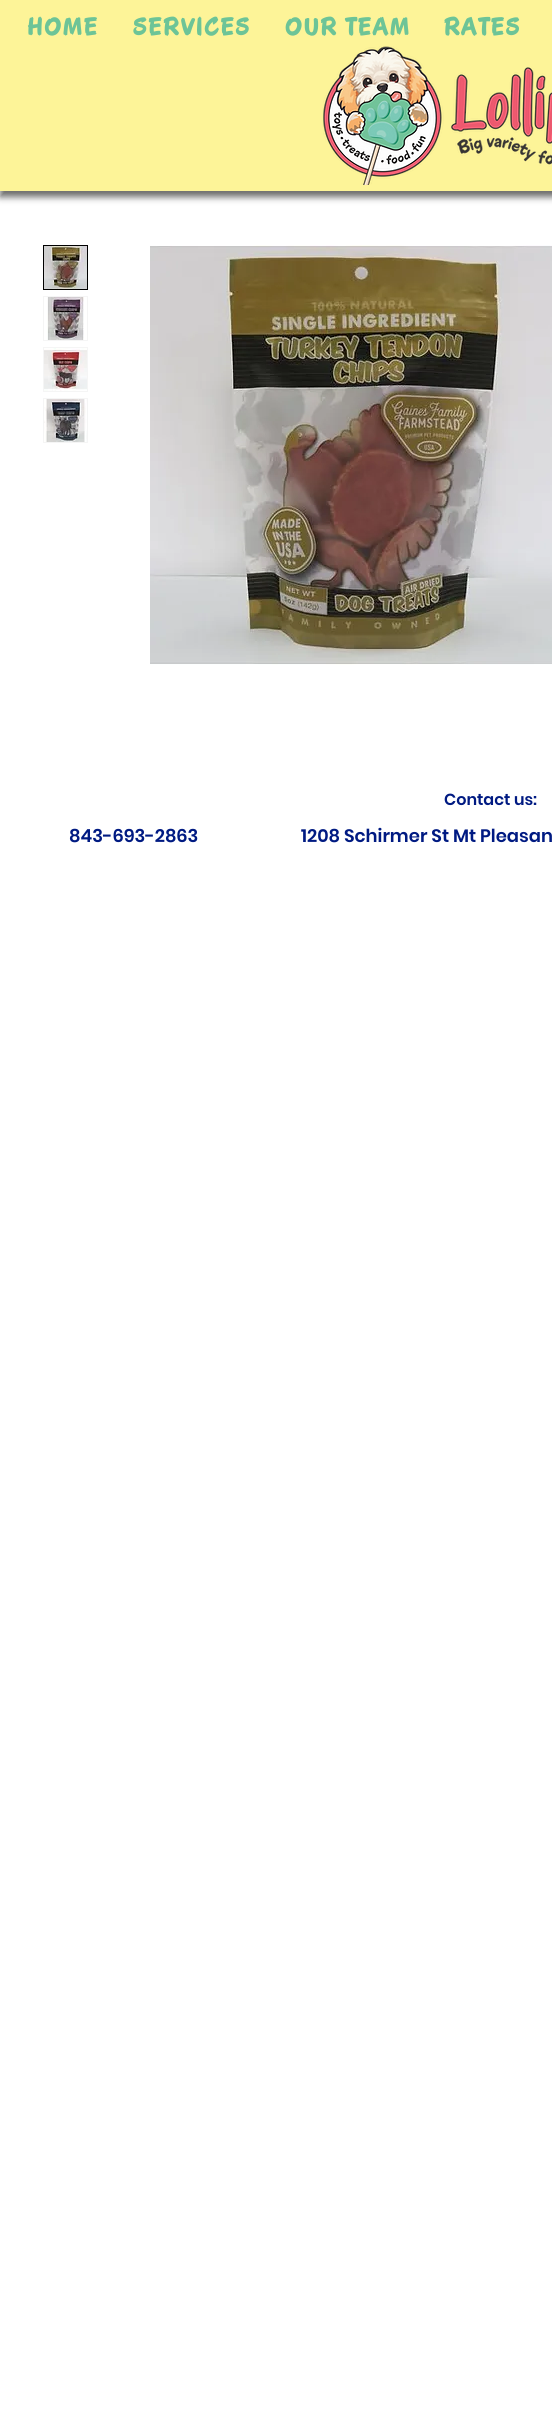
#include <cairo.h>
#include <math.h>
#include <stddef.h>


static void set_color(cairo_t *cr, unsigned color) {
    cairo_set_source_rgb(cr, (color >> 16) / 255.0, (color >> 8 & 255) / 255.0, (color & 255) / 255.0);
}

static void draw_text(cairo_t *cr, double x, double y, const char *s, const char *family, double size, int italic, int bold, unsigned color) {
    cairo_select_font_face(cr, family, italic ? CAIRO_FONT_SLANT_ITALIC : CAIRO_FONT_SLANT_NORMAL,
        bold ? CAIRO_FONT_WEIGHT_BOLD : CAIRO_FONT_WEIGHT_NORMAL);
    cairo_set_font_size(cr, size);
    set_color(cr, color);
    cairo_move_to(cr, x, y);
    cairo_show_text(cr, s);
}

static void draw_spaced(cairo_t *cr, double x, double y, const char *s, double letter, double word) {
    cairo_move_to(cr, x, y);
    while (*s) {
        char ch[5] = {0};
        int n = 0;
        do ch[n++] = *s++; while ((*s & 0xC0) == 0x80);
        cairo_show_text(cr, ch);
        cairo_rel_move_to(cr, letter + word * (*ch == ' '), 0);
    }
}

static void fill_rect(cairo_t *cr, double x, double y, double w, double h, unsigned color) {
    set_color(cr, color);
    cairo_rectangle(cr, x, y, w, h);
    cairo_fill(cr);
}

static void rounded_rect(cairo_t *cr, double x, double y, double w, double h, double r) {
    cairo_new_sub_path(cr);
    cairo_arc(cr, x + w - r, y + h - r, r, 0, M_PI / 2);
    cairo_arc(cr, x + r, y + h - r, r, M_PI / 2, M_PI);
    cairo_arc(cr, x + r, y + r, r, M_PI, 1.5 * M_PI);
    cairo_arc(cr, x + w - r, y + r, r, 1.5 * M_PI, 2 * M_PI);
    cairo_close_path(cr);
}

static void draw_shadow(cairo_t *cr, double x, double y, double w, double h, double r, double blur, double alpha) {
    cairo_push_group_with_content(cr, CAIRO_CONTENT_ALPHA);
    cairo_set_operator(cr, CAIRO_OPERATOR_SOURCE);
    for (int i = 15; i >= -15 && fmin(w, h) + blur * i / 3 > 0; i -= 2) {
        double e = blur * i / 6;
        cairo_set_source_rgba(cr, 0, 0, 0, alpha * erfc((i - 1) / 8.5) / 2);
        rounded_rect(cr, x - e, y - e, w + 2 * e, h + 2 * e, fmax(0, fmin(r + e + blur * .6, fmin(w, h) / 2 + e)));
        cairo_fill(cr);
    }
    cairo_pattern_t *soft = cairo_pop_group(cr);
    cairo_mask(cr, soft);
    cairo_pattern_destroy(soft);
}

static void draw_image(cairo_t *cr, const char *path, double x, double y, double w, double h) {
    cairo_surface_t *image = cairo_image_surface_create_from_png(path);
    cairo_save(cr);
    cairo_set_source_surface(cr, image, x, y);
    cairo_rectangle(cr, x, y, w, h);
    cairo_fill(cr);
    cairo_restore(cr);
    cairo_surface_destroy(image);
}

int main(void) {
    cairo_surface_t *surface = cairo_image_surface_create(CAIRO_FORMAT_RGB24, 552, 2432);
    cairo_t *cr = cairo_create(surface);
    cairo_font_options_t *options = cairo_font_options_create();
    cairo_font_options_set_hint_metrics(options, CAIRO_HINT_METRICS_OFF);
    cairo_font_options_set_hint_style(options, CAIRO_HINT_STYLE_NONE);
    cairo_set_font_options(cr, options);
    cairo_set_miter_limit(cr, 4);
    set_color(cr, 0xFFFFFF);
    cairo_paint(cr);
    set_color(cr, 0x6B6B6A);
    draw_shadow(cr, 0, 0, 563, 197, 0, 3.5, 1);
    fill_rect(cr, 0, 0, 552, 191, 0xFDF498);
    cairo_select_font_face(cr, "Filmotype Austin", CAIRO_FONT_SLANT_NORMAL, CAIRO_FONT_WEIGHT_NORMAL);
    cairo_set_font_size(cr, 25);
    set_color(cr, 0x6DC497);
    draw_spaced(cr, 27, 35, "HOME", 1.25, 0);
    draw_spaced(cr, 133, 35, "SERVICES", 1.25, 0);
    draw_spaced(cr, 285, 35, "OUR TEAM", 1.25, 0);
    draw_spaced(cr, 444, 35, "RATES", 1.25, 0);
    draw_image(cr, "assets/img1.png", 323, 46, 229, 139);
    cairo_rectangle(cr, 43.5, 245.5, 44, 44);
    set_color(cr, 0x000000);
    cairo_set_line_width(cr, 1);
    cairo_stroke(cr);
    draw_image(cr, "assets/img2.png", 44, 246, 43, 43);
    cairo_rectangle(cr, 43.5, 296.5, 44, 44);
    set_color(cr, 0xF5F5F5);
    cairo_stroke(cr);
    draw_image(cr, "assets/img3.png", 47, 297, 37, 43);
    cairo_rectangle(cr, 43.5, 347.5, 44, 44);
    cairo_stroke(cr);
    draw_image(cr, "assets/img4.png", 44, 348, 43, 43);
    cairo_rectangle(cr, 43.5, 398.5, 44, 44);
    cairo_stroke(cr);
    draw_image(cr, "assets/img5.png", 44, 399, 43, 43);
    draw_image(cr, "assets/img6.png", 150, 245, 402, 420);
    draw_text(cr, 444, 805, "Contact us:", "Poppins SemiBold", 16, 0, 0, 0x001A82);
    draw_text(cr, 69, 842, "843-693-2863", "Poppins SemiBold", 18, 0, 0, 0x001A82);
    draw_text(cr, 301, 842, "1208 Schirmer St Mt Pleasan", "Poppins SemiBold", 18, 0, 0, 0x001A82);
    cairo_surface_write_to_png(surface, "output.png");
    cairo_font_options_destroy(options);
    cairo_destroy(cr);
    cairo_surface_destroy(surface);
    return 0;
}
